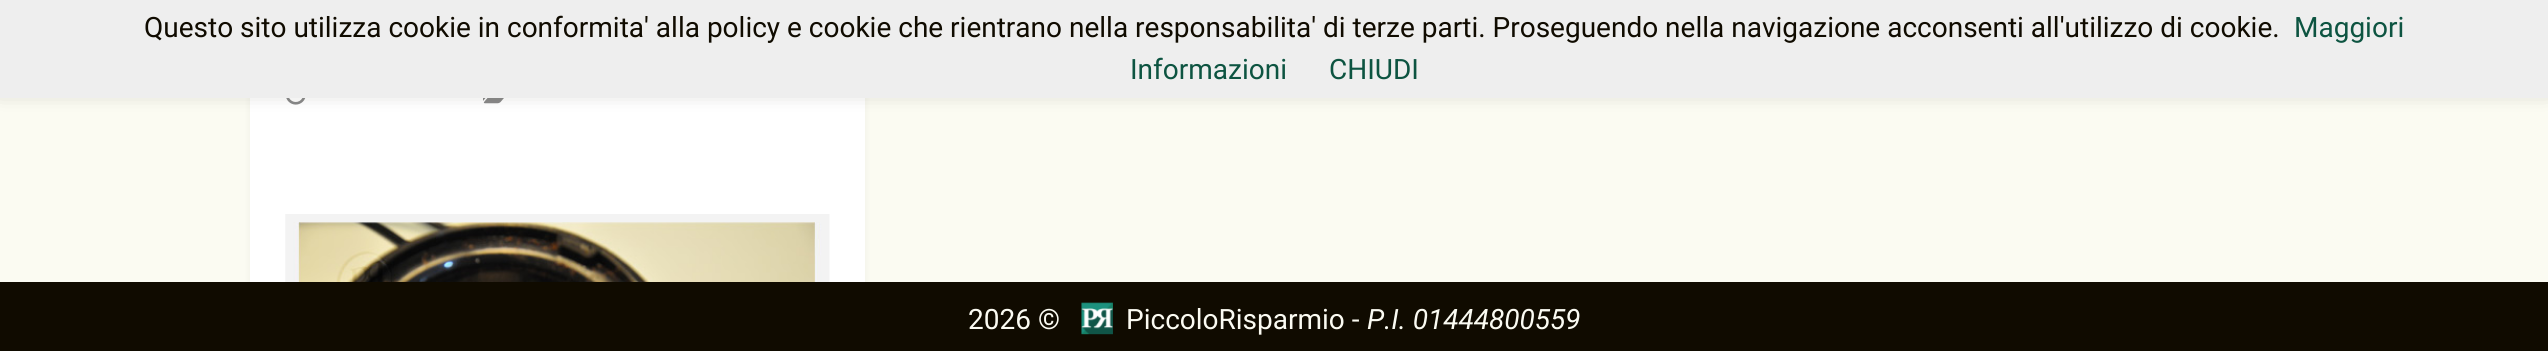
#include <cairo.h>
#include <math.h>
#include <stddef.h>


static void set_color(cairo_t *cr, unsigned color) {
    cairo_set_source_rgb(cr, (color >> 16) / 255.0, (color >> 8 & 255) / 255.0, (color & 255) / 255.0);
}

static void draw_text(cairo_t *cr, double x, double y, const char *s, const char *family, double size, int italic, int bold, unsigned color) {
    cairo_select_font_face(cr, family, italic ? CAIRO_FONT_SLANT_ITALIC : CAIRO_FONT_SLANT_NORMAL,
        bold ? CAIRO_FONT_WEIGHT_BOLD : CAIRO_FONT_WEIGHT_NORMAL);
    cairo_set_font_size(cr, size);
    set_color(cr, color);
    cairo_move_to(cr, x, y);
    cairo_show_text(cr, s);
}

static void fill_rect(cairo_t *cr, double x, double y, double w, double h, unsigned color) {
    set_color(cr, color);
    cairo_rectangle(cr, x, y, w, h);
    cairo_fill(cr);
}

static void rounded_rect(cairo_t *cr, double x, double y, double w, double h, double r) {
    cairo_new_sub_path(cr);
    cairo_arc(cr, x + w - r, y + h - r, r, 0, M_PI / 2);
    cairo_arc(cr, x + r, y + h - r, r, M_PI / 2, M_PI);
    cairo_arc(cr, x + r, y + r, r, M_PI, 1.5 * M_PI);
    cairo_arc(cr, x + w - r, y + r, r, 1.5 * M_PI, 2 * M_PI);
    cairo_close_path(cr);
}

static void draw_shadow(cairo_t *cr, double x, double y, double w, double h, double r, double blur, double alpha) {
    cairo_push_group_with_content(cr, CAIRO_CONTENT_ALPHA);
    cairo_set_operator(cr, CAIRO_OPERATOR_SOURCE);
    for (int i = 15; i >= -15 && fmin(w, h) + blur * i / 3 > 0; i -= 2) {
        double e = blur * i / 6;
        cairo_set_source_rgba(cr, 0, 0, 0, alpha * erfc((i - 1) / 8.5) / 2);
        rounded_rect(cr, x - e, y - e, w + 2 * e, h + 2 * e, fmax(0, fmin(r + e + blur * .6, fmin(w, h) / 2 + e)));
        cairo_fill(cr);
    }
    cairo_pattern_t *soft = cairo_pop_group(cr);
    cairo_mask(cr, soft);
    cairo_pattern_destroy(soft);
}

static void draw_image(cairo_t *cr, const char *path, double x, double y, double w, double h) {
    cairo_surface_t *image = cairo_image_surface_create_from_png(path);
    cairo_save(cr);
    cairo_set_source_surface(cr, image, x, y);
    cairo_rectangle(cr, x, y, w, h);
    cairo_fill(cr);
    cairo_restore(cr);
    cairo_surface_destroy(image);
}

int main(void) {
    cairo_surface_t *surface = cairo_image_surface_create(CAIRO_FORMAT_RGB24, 2548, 351);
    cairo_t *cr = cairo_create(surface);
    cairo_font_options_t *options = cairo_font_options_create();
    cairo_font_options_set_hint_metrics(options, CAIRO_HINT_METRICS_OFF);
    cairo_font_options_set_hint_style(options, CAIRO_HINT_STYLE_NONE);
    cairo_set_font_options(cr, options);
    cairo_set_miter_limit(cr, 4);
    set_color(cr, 0xFBFBF2);
    cairo_paint(cr);
    set_color(cr, 0x100B00);
    draw_shadow(cr, 250, -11, 615, 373, 0, 3.5, 0.05);
    fill_rect(cr, 250, 98, 615, 184, 0xFFFFFF);
    draw_image(cr, "assets/img1.png", 286, 98, 20, 7);
    draw_image(cr, "assets/img2.png", 483, 98, 21, 6);
    set_color(cr, 0x100B00);
    draw_shadow(cr, 0, 2, 2548, 87, 0, 10.5, 0.3);
    draw_image(cr, "assets/img3.png", 285, 214, 545, 68);
    fill_rect(cr, 0, 0, 2548, 98, 0xEEEEEE);
    draw_text(cr, 144, 37, "Questo sito utilizza cookie in conformita' alla policy e cookie che rientrano nella responsabilita' di terze parti. Proseguendo nella navigazione acconsenti all'utilizzo di cookie.", "Roboto", 28, 0, 0, 0x100B00);
    draw_text(cr, 2294, 37, "Maggiori", "Roboto", 28, 0, 0, 0x0D5441);
    draw_text(cr, 1130, 79, "Informazioni", "Roboto", 28, 0, 0, 0x0D5441);
    draw_text(cr, 1329, 79, "CHIUDI", "Roboto", 28, 0, 0, 0x0D5441);
    fill_rect(cr, 0, 282, 2548, 69, 0x100B00);
    draw_text(cr, 968, 329, "2026 ©", "Roboto", 28, 0, 0, 0xFBFBF2);
    draw_image(cr, "assets/img4.png", 1081, 302, 32, 33);
    draw_text(cr, 1126, 329, "PiccoloRisparmio -", "Roboto", 28, 0, 0, 0xFBFBF2);
    draw_text(cr, 1367, 329, "P.I. 01444800559", "Roboto", 28, 1, 0, 0xFBFBF2);
    cairo_surface_write_to_png(surface, "output.png");
    cairo_font_options_destroy(options);
    cairo_destroy(cr);
    cairo_surface_destroy(surface);
    return 0;
}
